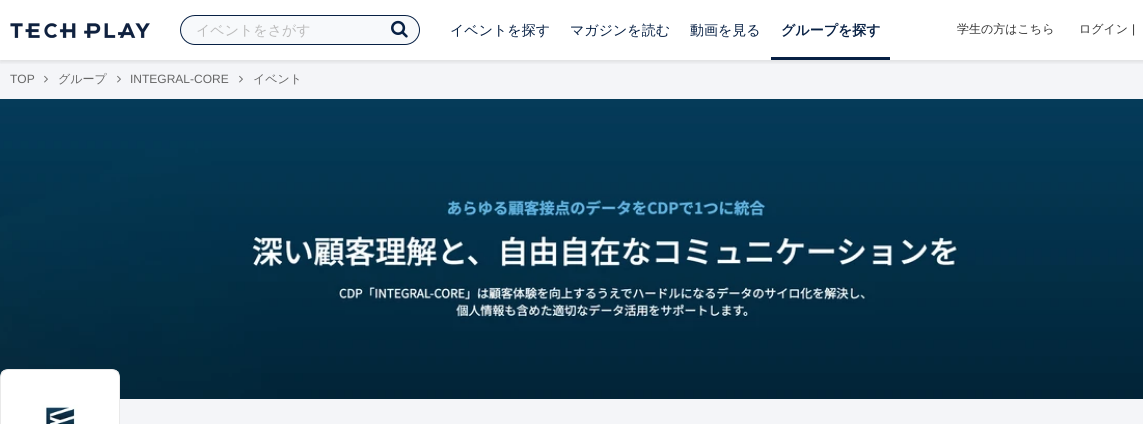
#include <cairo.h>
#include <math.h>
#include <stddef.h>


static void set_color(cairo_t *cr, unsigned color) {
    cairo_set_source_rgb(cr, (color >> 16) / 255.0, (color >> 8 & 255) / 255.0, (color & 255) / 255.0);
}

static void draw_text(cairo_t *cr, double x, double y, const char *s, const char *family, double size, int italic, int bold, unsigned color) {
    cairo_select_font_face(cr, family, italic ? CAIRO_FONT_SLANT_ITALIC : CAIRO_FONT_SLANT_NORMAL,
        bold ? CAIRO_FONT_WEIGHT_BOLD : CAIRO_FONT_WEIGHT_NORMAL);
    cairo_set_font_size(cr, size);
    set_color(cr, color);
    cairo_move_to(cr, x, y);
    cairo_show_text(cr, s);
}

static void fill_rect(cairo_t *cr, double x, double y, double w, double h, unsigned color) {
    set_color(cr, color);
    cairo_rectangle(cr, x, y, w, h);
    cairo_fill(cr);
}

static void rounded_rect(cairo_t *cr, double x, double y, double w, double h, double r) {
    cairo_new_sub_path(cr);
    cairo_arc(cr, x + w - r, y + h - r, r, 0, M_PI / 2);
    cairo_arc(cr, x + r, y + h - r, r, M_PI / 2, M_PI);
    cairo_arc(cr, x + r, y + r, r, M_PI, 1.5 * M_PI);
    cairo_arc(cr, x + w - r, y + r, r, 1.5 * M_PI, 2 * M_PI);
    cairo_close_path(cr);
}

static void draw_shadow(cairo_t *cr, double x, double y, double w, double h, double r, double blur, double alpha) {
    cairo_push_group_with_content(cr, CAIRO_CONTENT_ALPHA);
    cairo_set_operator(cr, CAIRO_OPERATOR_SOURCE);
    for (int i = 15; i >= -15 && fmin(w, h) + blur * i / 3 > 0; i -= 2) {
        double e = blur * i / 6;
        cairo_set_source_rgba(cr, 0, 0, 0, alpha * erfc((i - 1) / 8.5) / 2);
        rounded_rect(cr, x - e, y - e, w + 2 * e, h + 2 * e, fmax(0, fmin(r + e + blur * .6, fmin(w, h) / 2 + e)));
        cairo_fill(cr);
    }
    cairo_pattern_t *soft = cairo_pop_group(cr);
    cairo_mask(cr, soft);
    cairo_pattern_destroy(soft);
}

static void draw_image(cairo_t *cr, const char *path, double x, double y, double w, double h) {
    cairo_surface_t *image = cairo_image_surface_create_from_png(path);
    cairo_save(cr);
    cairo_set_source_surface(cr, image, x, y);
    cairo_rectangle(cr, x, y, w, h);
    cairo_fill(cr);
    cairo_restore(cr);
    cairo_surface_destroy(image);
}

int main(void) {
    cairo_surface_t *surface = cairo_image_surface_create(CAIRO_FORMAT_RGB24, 1143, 424);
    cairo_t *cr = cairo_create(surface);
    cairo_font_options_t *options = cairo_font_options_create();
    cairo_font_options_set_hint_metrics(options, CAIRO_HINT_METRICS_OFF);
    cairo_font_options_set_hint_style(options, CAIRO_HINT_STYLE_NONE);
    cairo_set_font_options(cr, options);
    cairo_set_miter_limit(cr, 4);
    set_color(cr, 0xFFFFFF);
    cairo_paint(cr);
    fill_rect(cr, 0, 60, 1143, 364, 0xF4F5F8);
    cairo_save(cr);
    cairo_rectangle(cr, 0, 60, 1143, 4);
    cairo_clip(cr);
    set_color(cr, 0x000000);
    draw_shadow(cr, 0, 2, 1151, 60, 0, 2.5, 0.1);
    cairo_restore(cr);
    draw_image(cr, "assets/img1.png", 10, 23, 140, 15);
    set_color(cr, 0xF7F9FB);
    rounded_rect(cr, 180.5, 15.5, 239, 29, 14.5);
    cairo_fill_preserve(cr);
    set_color(cr, 0x072044);
    cairo_set_line_width(cr, 1);
    cairo_stroke(cr);
    draw_text(cr, 196, 35, "イベントをさがす", "WenQuanYi Zen Hei Medium", 14, 0, 0, 0xBBBBBB);
    draw_image(cr, "assets/img2.png", 391, 20, 17, 18);
    draw_text(cr, 450, 35, "イベントを探す", "WenQuanYi Zen Hei Medium", 14, 0, 0, 0x072044);
    draw_text(cr, 570, 35, "マガジンを読む", "WenQuanYi Zen Hei Medium", 14, 0, 0, 0x072044);
    draw_text(cr, 690, 35, "動画を見る", "WenQuanYi Zen Hei Medium", 14, 0, 0, 0x072044);
    draw_text(cr, 781, 35, "グループを探す", "WenQuanYi Zen Hei", 14, 0, 1, 0x072044);
    fill_rect(cr, 771, 57, 119, 3, 0x072044);
    draw_text(cr, 957, 33, "学生の方はこちら", "WenQuanYi Zen Hei Medium", 12, 0, 0, 0x333333);
    draw_text(cr, 1079, 33, "ログイン", "WenQuanYi Zen Hei Medium", 12, 0, 0, 0x333333);
    draw_text(cr, 1132, 33, "|", "Liberation Sans", 12, 0, 0, 0x333333);
    draw_text(cr, 10, 83, "TOP", "Liberation Sans", 12, 0, 0, 0x666666);
    draw_image(cr, "assets/img3.png", 44, 75, 4, 8);
    draw_text(cr, 58, 83, "グループ", "WenQuanYi Zen Hei Medium", 12, 0, 0, 0x666666);
    draw_image(cr, "assets/img3.png", 117, 75, 4, 8);
    draw_text(cr, 130, 83, "INTEGRAL-CORE", "Liberation Sans", 12, 0, 0, 0x666666);
    draw_image(cr, "assets/img3.png", 239, 75, 4, 8);
    draw_text(cr, 253, 83, "イベント", "WenQuanYi Zen Hei Medium", 12, 0, 0, 0x666666);
    draw_image(cr, "assets/img4.png", 0, 99, 1143, 300);
    draw_image(cr, "assets/img5.png", 1, 370, 118, 54);
    rounded_rect(cr, 0.5, 369.5, 119, 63, 7.5);
    set_color(cr, 0xE9E9E9);
    cairo_stroke(cr);
    cairo_surface_write_to_png(surface, "output.png");
    cairo_font_options_destroy(options);
    cairo_destroy(cr);
    cairo_surface_destroy(surface);
    return 0;
}
